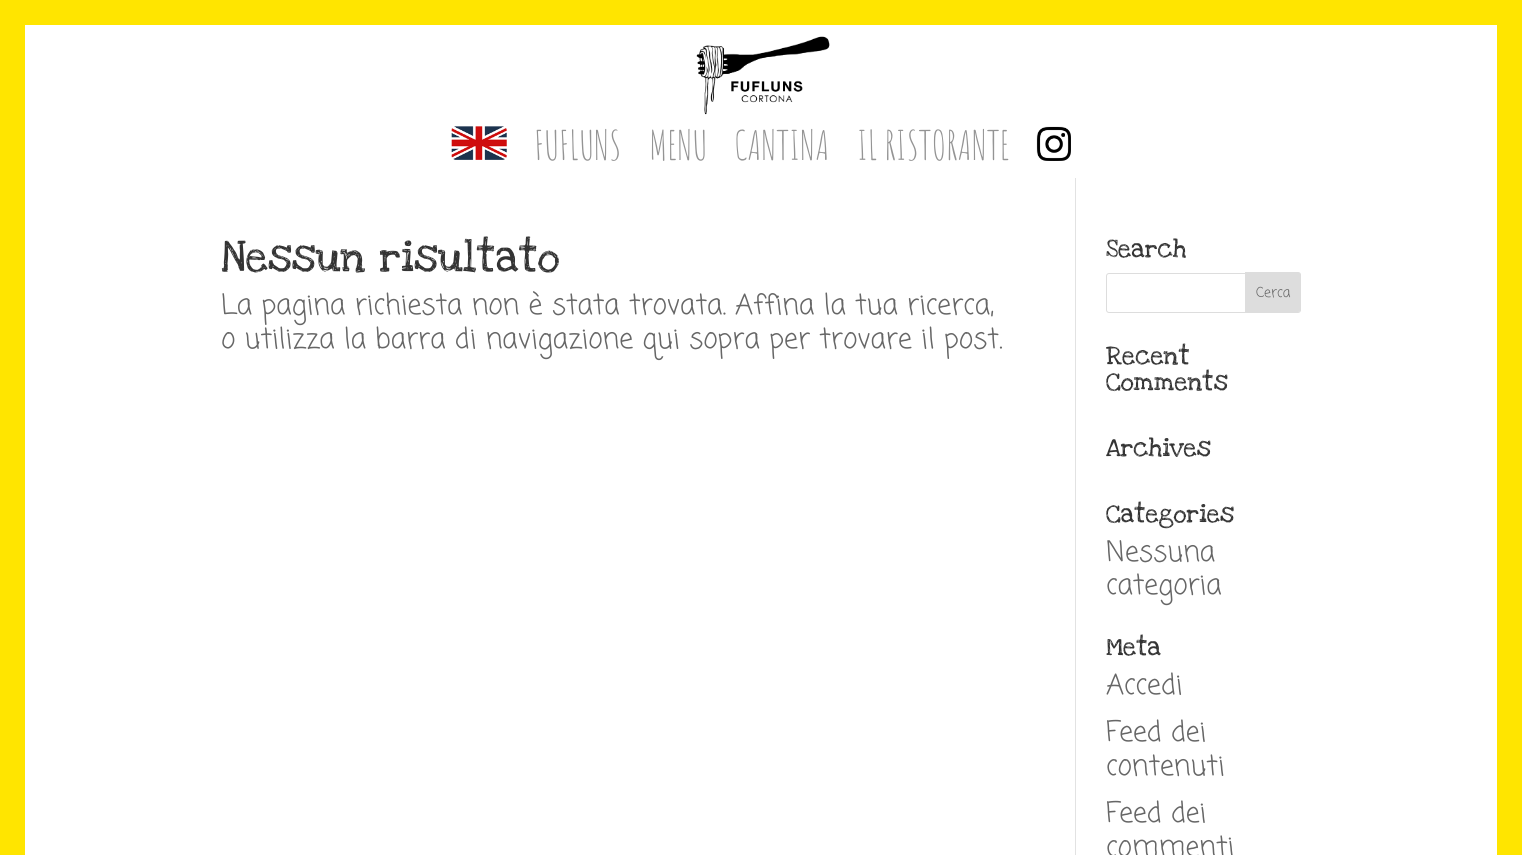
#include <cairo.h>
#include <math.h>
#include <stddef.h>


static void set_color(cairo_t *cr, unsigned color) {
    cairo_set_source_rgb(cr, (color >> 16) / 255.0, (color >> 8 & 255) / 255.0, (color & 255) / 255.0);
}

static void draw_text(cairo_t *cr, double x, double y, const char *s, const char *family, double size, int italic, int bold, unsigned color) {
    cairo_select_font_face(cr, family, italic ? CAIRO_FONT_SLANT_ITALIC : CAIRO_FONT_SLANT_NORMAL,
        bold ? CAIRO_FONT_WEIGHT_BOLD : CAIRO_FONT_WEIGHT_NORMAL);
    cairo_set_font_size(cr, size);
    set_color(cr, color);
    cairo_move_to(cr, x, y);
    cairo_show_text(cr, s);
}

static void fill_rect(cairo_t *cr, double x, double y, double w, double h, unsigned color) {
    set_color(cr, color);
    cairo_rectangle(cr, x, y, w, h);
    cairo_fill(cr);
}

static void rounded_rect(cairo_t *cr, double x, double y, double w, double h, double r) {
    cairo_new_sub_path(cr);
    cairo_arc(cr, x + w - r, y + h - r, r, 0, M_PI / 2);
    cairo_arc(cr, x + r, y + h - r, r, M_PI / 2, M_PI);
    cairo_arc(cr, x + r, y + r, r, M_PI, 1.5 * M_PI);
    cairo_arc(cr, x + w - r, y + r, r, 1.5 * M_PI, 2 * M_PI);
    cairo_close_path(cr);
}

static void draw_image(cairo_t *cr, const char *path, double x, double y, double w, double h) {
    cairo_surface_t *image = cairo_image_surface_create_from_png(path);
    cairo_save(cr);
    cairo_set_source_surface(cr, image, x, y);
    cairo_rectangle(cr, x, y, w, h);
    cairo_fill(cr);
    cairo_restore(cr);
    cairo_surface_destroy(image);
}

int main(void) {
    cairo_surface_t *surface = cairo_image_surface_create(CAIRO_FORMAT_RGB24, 1522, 855);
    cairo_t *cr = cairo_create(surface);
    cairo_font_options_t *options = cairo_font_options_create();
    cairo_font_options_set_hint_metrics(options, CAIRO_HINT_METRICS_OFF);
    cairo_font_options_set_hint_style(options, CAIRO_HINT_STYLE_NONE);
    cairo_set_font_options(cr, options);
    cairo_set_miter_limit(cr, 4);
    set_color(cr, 0xFFFFFF);
    cairo_paint(cr);
    cairo_rectangle(cr, 12.5, 12.5, 1497, 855);
    set_color(cr, 0xFFE500);
    cairo_set_line_width(cr, 25);
    cairo_stroke(cr);
    draw_image(cr, "assets/img1.png", 696, 36, 134, 79);
    draw_image(cr, "assets/img2.png", 451, 126, 56, 34);
    draw_text(cr, 534, 160, "FUFLUNS", "Amatic SC", 40, 0, 0, 0x949494);
    draw_text(cr, 649, 160, "MENU", "Amatic SC", 40, 0, 0, 0x949494);
    draw_text(cr, 734, 160, "CANTINA", "Amatic SC", 40, 0, 0, 0x949494);
    draw_text(cr, 857, 160, "IL RISTORANTE", "Amatic SC", 40, 0, 0, 0x949494);
    draw_image(cr, "assets/img3.png", 1036, 126, 35, 35);
    fill_rect(cr, 1075, 178, 1, 677, 0xE2E2E2);
    draw_text(cr, 221, 271, "Nessun risultato", "Love Ya Like A Sister", 44, 0, 0, 0x333333);
    draw_text(cr, 221, 314, "La pagina richiesta non è stata trovata. Affina la tua ricerca,", "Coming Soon", 28, 0, 0, 0x666666);
    draw_text(cr, 221, 348, "o utilizza la barra di navigazione qui sopra per trovare il post.", "Coming Soon", 28, 0, 0, 0x666666);
    draw_text(cr, 1106, 257, "Search", "Love Ya Like A Sister", 26, 0, 0, 0x333333);
    rounded_rect(cr, 1106.5, 273.5, 194, 39, 2.5);
    set_color(cr, 0xDDDDDD);
    cairo_set_line_width(cr, 1);
    cairo_stroke(cr);
    cairo_new_path(cr);
    cairo_move_to(cr, 1245.5, 272.5);
    cairo_line_to(cr, 1298, 272.5);
    cairo_curve_to(cr, 1299.5, 272.5, 1300.5, 273.5, 1300.5, 275);
    cairo_line_to(cr, 1300.5, 309);
    cairo_curve_to(cr, 1300.5, 310.5, 1299.5, 311.5, 1298, 311.5);
    cairo_line_to(cr, 1245.5, 311.5);
    cairo_close_path(cr);
    cairo_fill_preserve(cr);
    cairo_stroke(cr);
    draw_text(cr, 1256, 297, "Cerca", "Coming Soon", 14, 0, 0, 0x666666);
    draw_text(cr, 1106, 364, "Recent", "Love Ya Like A Sister", 26, 0, 0, 0x333333);
    draw_text(cr, 1106, 390, "Comments", "Love Ya Like A Sister", 26, 0, 0, 0x333333);
    draw_text(cr, 1106, 456, "Archives", "Love Ya Like A Sister", 26, 0, 0, 0x333333);
    draw_text(cr, 1106, 522, "Categories", "Love Ya Like A Sister", 26, 0, 0, 0x333333);
    draw_text(cr, 1106, 561, "Nessuna", "Coming Soon", 28, 0, 0, 0x666666);
    draw_text(cr, 1106, 594, "categoria", "Coming Soon", 28, 0, 0, 0x666666);
    draw_text(cr, 1106, 655, "Meta", "Love Ya Like A Sister", 26, 0, 0, 0x333333);
    draw_text(cr, 1106, 694, "Accedi", "Coming Soon", 28, 0, 0, 0x666666);
    draw_text(cr, 1106, 741, "Feed dei", "Coming Soon", 28, 0, 0, 0x666666);
    draw_text(cr, 1106, 775, "contenuti", "Coming Soon", 28, 0, 0, 0x666666);
    draw_text(cr, 1106, 822, "Feed dei", "Coming Soon", 28, 0, 0, 0x666666);
    draw_text(cr, 1106, 856, "commenti", "Coming Soon", 28, 0, 0, 0x666666);
    cairo_surface_write_to_png(surface, "output.png");
    cairo_font_options_destroy(options);
    cairo_destroy(cr);
    cairo_surface_destroy(surface);
    return 0;
}
